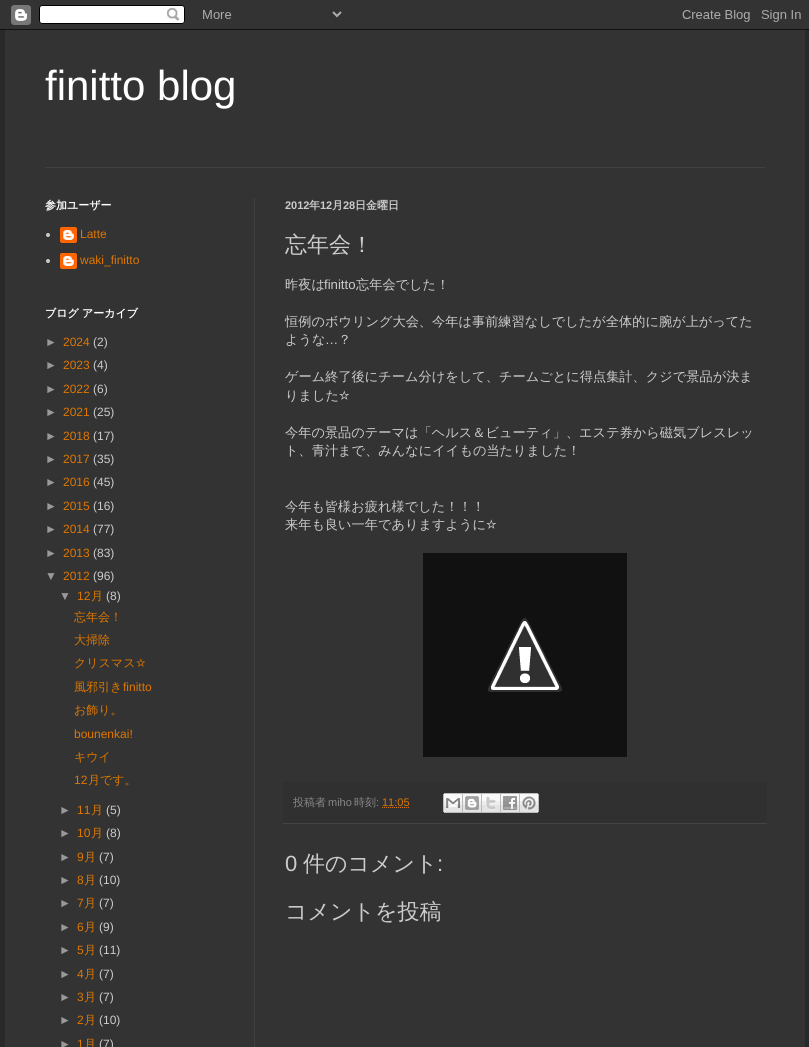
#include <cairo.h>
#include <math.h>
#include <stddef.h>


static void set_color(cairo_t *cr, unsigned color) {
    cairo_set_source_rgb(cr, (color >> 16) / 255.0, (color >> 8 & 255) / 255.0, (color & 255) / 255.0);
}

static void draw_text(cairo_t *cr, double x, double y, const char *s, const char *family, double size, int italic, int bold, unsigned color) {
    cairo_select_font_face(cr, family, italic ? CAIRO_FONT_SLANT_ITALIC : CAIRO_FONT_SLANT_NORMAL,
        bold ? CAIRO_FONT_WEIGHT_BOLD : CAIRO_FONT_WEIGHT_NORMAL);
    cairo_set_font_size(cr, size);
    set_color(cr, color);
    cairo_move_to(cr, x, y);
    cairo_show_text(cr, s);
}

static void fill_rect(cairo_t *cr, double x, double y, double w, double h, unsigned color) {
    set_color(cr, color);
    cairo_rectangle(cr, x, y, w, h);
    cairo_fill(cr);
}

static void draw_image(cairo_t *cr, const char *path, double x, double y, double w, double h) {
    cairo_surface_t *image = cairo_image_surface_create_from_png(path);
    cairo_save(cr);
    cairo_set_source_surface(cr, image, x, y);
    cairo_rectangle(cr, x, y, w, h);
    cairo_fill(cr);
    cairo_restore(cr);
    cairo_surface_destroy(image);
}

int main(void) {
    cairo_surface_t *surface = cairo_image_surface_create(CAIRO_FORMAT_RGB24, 809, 1047);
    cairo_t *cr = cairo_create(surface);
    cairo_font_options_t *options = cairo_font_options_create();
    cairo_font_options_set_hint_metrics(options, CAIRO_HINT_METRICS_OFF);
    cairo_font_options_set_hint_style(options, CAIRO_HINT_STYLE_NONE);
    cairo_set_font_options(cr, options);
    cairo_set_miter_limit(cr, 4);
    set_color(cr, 0x292929);
    cairo_paint(cr);
    draw_image(cr, "assets/img1.png", 0, 0, 809, 30);
    fill_rect(cr, 5, 30, 800, 1017, 0x333333);
    draw_text(cr, 45, 100, "finitto blog", "Liberation Sans", 42, 0, 0, 0xFFFFFF);
    fill_rect(cr, 45, 167, 720, 1, 0x404040);
    fill_rect(cr, 254, 198, 1, 849, 0x404040);
    draw_text(cr, 45, 209, "参加ユーザー", "WenQuanYi Zen Hei", 11, 0, 1, 0xFFFFFF);
    set_color(cr, 0xCCCCCC);
    cairo_new_path(cr);
    cairo_arc(cr, 48, 235, 2, 0, 2 * M_PI);
    cairo_fill(cr);
    draw_image(cr, "assets/img2.png", 60, 227, 17, 16);
    draw_text(cr, 80, 238, "Latte", "Liberation Sans", 12, 0, 0, 0xDD7700);
    set_color(cr, 0xCCCCCC);
    cairo_new_path(cr);
    cairo_arc(cr, 48, 261, 2, 0, 2 * M_PI);
    cairo_fill(cr);
    draw_image(cr, "assets/img2.png", 60, 253, 17, 16);
    draw_text(cr, 80, 264, "waki_finitto", "Liberation Sans", 12, 0, 0, 0xDD7700);
    draw_text(cr, 45, 317, "ブログ アーカイブ", "WenQuanYi Zen Hei", 11, 0, 1, 0xFFFFFF);
    draw_text(cr, 45, 346, "►", "Liberation Sans", 12, 0, 0, 0x999999);
    draw_text(cr, 63, 346, "2024", "Liberation Sans", 12, 0, 0, 0xDD7700);
    draw_text(cr, 93, 346, "(2)", "Liberation Sans", 12, 0, 0, 0xCCCCCC);
    draw_text(cr, 45, 369, "►", "Liberation Sans", 12, 0, 0, 0x999999);
    draw_text(cr, 63, 369, "2023", "Liberation Sans", 12, 0, 0, 0xDD7700);
    draw_text(cr, 93, 369, "(4)", "Liberation Sans", 12, 0, 0, 0xCCCCCC);
    draw_text(cr, 45, 393, "►", "Liberation Sans", 12, 0, 0, 0x999999);
    draw_text(cr, 63, 393, "2022", "Liberation Sans", 12, 0, 0, 0xDD7700);
    draw_text(cr, 93, 393, "(6)", "Liberation Sans", 12, 0, 0, 0xCCCCCC);
    draw_text(cr, 45, 416, "►", "Liberation Sans", 12, 0, 0, 0x999999);
    draw_text(cr, 63, 416, "2021", "Liberation Sans", 12, 0, 0, 0xDD7700);
    draw_text(cr, 93, 416, "(25)", "Liberation Sans", 12, 0, 0, 0xCCCCCC);
    draw_text(cr, 45, 440, "►", "Liberation Sans", 12, 0, 0, 0x999999);
    draw_text(cr, 63, 440, "2018", "Liberation Sans", 12, 0, 0, 0xDD7700);
    draw_text(cr, 93, 440, "(17)", "Liberation Sans", 12, 0, 0, 0xCCCCCC);
    draw_text(cr, 45, 463, "►", "Liberation Sans", 12, 0, 0, 0x999999);
    draw_text(cr, 63, 463, "2017", "Liberation Sans", 12, 0, 0, 0xDD7700);
    draw_text(cr, 93, 463, "(35)", "Liberation Sans", 12, 0, 0, 0xCCCCCC);
    draw_text(cr, 45, 486, "►", "Liberation Sans", 12, 0, 0, 0x999999);
    draw_text(cr, 63, 486, "2016", "Liberation Sans", 12, 0, 0, 0xDD7700);
    draw_text(cr, 93, 486, "(45)", "Liberation Sans", 12, 0, 0, 0xCCCCCC);
    draw_text(cr, 45, 510, "►", "Liberation Sans", 12, 0, 0, 0x999999);
    draw_text(cr, 63, 510, "2015", "Liberation Sans", 12, 0, 0, 0xDD7700);
    draw_text(cr, 93, 510, "(16)", "Liberation Sans", 12, 0, 0, 0xCCCCCC);
    draw_text(cr, 45, 533, "►", "Liberation Sans", 12, 0, 0, 0x999999);
    draw_text(cr, 63, 533, "2014", "Liberation Sans", 12, 0, 0, 0xDD7700);
    draw_text(cr, 93, 533, "(77)", "Liberation Sans", 12, 0, 0, 0xCCCCCC);
    draw_text(cr, 45, 557, "►", "Liberation Sans", 12, 0, 0, 0x999999);
    draw_text(cr, 63, 557, "2013", "Liberation Sans", 12, 0, 0, 0xDD7700);
    draw_text(cr, 93, 557, "(83)", "Liberation Sans", 12, 0, 0, 0xCCCCCC);
    draw_text(cr, 45, 580, "▼", "Liberation Sans", 12, 0, 0, 0x999999);
    draw_text(cr, 63, 580, "2012", "Liberation Sans", 12, 0, 0, 0xDD7700);
    draw_text(cr, 93, 580, "(96)", "Liberation Sans", 12, 0, 0, 0xCCCCCC);
    draw_text(cr, 59, 600, "▼", "Liberation Sans", 12, 0, 0, 0x999999);
    draw_text(cr, 77, 600, "12", "Liberation Sans", 12, 0, 0, 0xDD7700);
    draw_text(cr, 91, 600, "月", "WenQuanYi Zen Hei Medium", 12, 0, 0, 0xDD7700);
    draw_text(cr, 106, 600, "(8)", "Liberation Sans", 12, 0, 0, 0xCCCCCC);
    draw_text(cr, 74, 621, "忘年会！", "WenQuanYi Zen Hei Medium", 12, 0, 0, 0xDD7700);
    draw_text(cr, 74, 644, "大掃除", "WenQuanYi Zen Hei Medium", 12, 0, 0, 0xDD7700);
    draw_text(cr, 74, 667, "クリスマス", "WenQuanYi Zen Hei Medium", 12, 0, 0, 0xDD7700);
    draw_text(cr, 136, 667, "☆", "FreeSans", 12, 0, 0, 0xDD7700);
    draw_text(cr, 74, 691, "風邪引き", "WenQuanYi Zen Hei Medium", 12, 0, 0, 0xDD7700);
    draw_text(cr, 123, 691, "finitto", "Liberation Sans", 12, 0, 0, 0xDD7700);
    draw_text(cr, 74, 714, "お飾り。", "WenQuanYi Zen Hei Medium", 12, 0, 0, 0xDD7700);
    draw_text(cr, 74, 738, "bounenkai!", "Liberation Sans", 12, 0, 0, 0xDD7700);
    draw_text(cr, 74, 761, "キウイ", "WenQuanYi Zen Hei Medium", 12, 0, 0, 0xDD7700);
    draw_text(cr, 74, 784, "12", "Liberation Sans", 12, 0, 0, 0xDD7700);
    draw_text(cr, 88, 784, "月です。", "WenQuanYi Zen Hei Medium", 12, 0, 0, 0xDD7700);
    draw_text(cr, 59, 814, "►", "Liberation Sans", 12, 0, 0, 0x999999);
    draw_text(cr, 77, 814, "11", "Liberation Sans", 12, 0, 0, 0xDD7700);
    draw_text(cr, 91, 814, "月", "WenQuanYi Zen Hei Medium", 12, 0, 0, 0xDD7700);
    draw_text(cr, 106, 814, "(5)", "Liberation Sans", 12, 0, 0, 0xCCCCCC);
    draw_text(cr, 59, 837, "►", "Liberation Sans", 12, 0, 0, 0x999999);
    draw_text(cr, 77, 837, "10", "Liberation Sans", 12, 0, 0, 0xDD7700);
    draw_text(cr, 91, 837, "月", "WenQuanYi Zen Hei Medium", 12, 0, 0, 0xDD7700);
    draw_text(cr, 106, 837, "(8)", "Liberation Sans", 12, 0, 0, 0xCCCCCC);
    draw_text(cr, 59, 861, "►", "Liberation Sans", 12, 0, 0, 0x999999);
    draw_text(cr, 77, 861, "9", "Liberation Sans", 12, 0, 0, 0xDD7700);
    draw_text(cr, 84, 861, "月", "WenQuanYi Zen Hei Medium", 12, 0, 0, 0xDD7700);
    draw_text(cr, 99, 861, "(7)", "Liberation Sans", 12, 0, 0, 0xCCCCCC);
    draw_text(cr, 59, 884, "►", "Liberation Sans", 12, 0, 0, 0x999999);
    draw_text(cr, 77, 884, "8", "Liberation Sans", 12, 0, 0, 0xDD7700);
    draw_text(cr, 84, 884, "月", "WenQuanYi Zen Hei Medium", 12, 0, 0, 0xDD7700);
    draw_text(cr, 99, 884, "(10)", "Liberation Sans", 12, 0, 0, 0xCCCCCC);
    draw_text(cr, 59, 907, "►", "Liberation Sans", 12, 0, 0, 0x999999);
    draw_text(cr, 77, 907, "7", "Liberation Sans", 12, 0, 0, 0xDD7700);
    draw_text(cr, 84, 907, "月", "WenQuanYi Zen Hei Medium", 12, 0, 0, 0xDD7700);
    draw_text(cr, 99, 907, "(7)", "Liberation Sans", 12, 0, 0, 0xCCCCCC);
    draw_text(cr, 59, 931, "►", "Liberation Sans", 12, 0, 0, 0x999999);
    draw_text(cr, 77, 931, "6", "Liberation Sans", 12, 0, 0, 0xDD7700);
    draw_text(cr, 84, 931, "月", "WenQuanYi Zen Hei Medium", 12, 0, 0, 0xDD7700);
    draw_text(cr, 99, 931, "(9)", "Liberation Sans", 12, 0, 0, 0xCCCCCC);
    draw_text(cr, 59, 954, "►", "Liberation Sans", 12, 0, 0, 0x999999);
    draw_text(cr, 77, 954, "5", "Liberation Sans", 12, 0, 0, 0xDD7700);
    draw_text(cr, 84, 954, "月", "WenQuanYi Zen Hei Medium", 12, 0, 0, 0xDD7700);
    draw_text(cr, 99, 954, "(11)", "Liberation Sans", 12, 0, 0, 0xCCCCCC);
    draw_text(cr, 59, 978, "►", "Liberation Sans", 12, 0, 0, 0x999999);
    draw_text(cr, 77, 978, "4", "Liberation Sans", 12, 0, 0, 0xDD7700);
    draw_text(cr, 84, 978, "月", "WenQuanYi Zen Hei Medium", 12, 0, 0, 0xDD7700);
    draw_text(cr, 99, 978, "(7)", "Liberation Sans", 12, 0, 0, 0xCCCCCC);
    draw_text(cr, 59, 1001, "►", "Liberation Sans", 12, 0, 0, 0x999999);
    draw_text(cr, 77, 1001, "3", "Liberation Sans", 12, 0, 0, 0xDD7700);
    draw_text(cr, 84, 1001, "月", "WenQuanYi Zen Hei Medium", 12, 0, 0, 0xDD7700);
    draw_text(cr, 99, 1001, "(7)", "Liberation Sans", 12, 0, 0, 0xCCCCCC);
    draw_text(cr, 59, 1024, "►", "Liberation Sans", 12, 0, 0, 0x999999);
    draw_text(cr, 77, 1024, "2", "Liberation Sans", 12, 0, 0, 0xDD7700);
    draw_text(cr, 84, 1024, "月", "WenQuanYi Zen Hei Medium", 12, 0, 0, 0xDD7700);
    draw_text(cr, 99, 1024, "(10)", "Liberation Sans", 12, 0, 0, 0xCCCCCC);
    draw_text(cr, 59, 1048, "►", "Liberation Sans", 12, 0, 0, 0x999999);
    draw_text(cr, 77, 1048, "1", "Liberation Sans", 12, 0, 0, 0xDD7700);
    draw_text(cr, 84, 1048, "月", "WenQuanYi Zen Hei Medium", 12, 0, 0, 0xDD7700);
    draw_text(cr, 99, 1048, "(7)", "Liberation Sans", 12, 0, 0, 0xCCCCCC);
    draw_text(cr, 285, 209, "2012", "Liberation Sans", 11, 0, 1, 0xCCCCCC);
    draw_text(cr, 309, 209, "年", "WenQuanYi Zen Hei", 11, 0, 1, 0xCCCCCC);
    draw_text(cr, 320, 209, "12", "Liberation Sans", 11, 0, 1, 0xCCCCCC);
    draw_text(cr, 332, 209, "月", "WenQuanYi Zen Hei", 11, 0, 1, 0xCCCCCC);
    draw_text(cr, 343, 209, "28", "Liberation Sans", 11, 0, 1, 0xCCCCCC);
    draw_text(cr, 355, 209, "日金曜日", "WenQuanYi Zen Hei", 11, 0, 1, 0xCCCCCC);
    draw_text(cr, 285, 252, "忘年会！", "WenQuanYi Zen Hei Medium", 22, 0, 0, 0xCCCCCC);
    draw_text(cr, 285, 289, "昨夜は", "WenQuanYi Zen Hei Medium", 13.2, 0, 0, 0xCCCCCC);
    draw_text(cr, 324, 289, "finitto", "Liberation Sans", 13.2, 0, 0, 0xCCCCCC);
    draw_text(cr, 356, 289, "忘年会でした！", "WenQuanYi Zen Hei Medium", 13.2, 0, 0, 0xCCCCCC);
    draw_text(cr, 285, 326, "恒例のボウリング大会、今年は事前練習なしでしたが全体的に腕が上がってた", "WenQuanYi Zen Hei Medium", 13.2, 0, 0, 0xCCCCCC);
    draw_text(cr, 285, 344, "ような", "WenQuanYi Zen Hei Medium", 13.2, 0, 0, 0xCCCCCC);
    draw_text(cr, 325, 344, "…", "Liberation Sans", 13.2, 0, 0, 0xCCCCCC);
    draw_text(cr, 338, 344, "？", "WenQuanYi Zen Hei Medium", 13.2, 0, 0, 0xCCCCCC);
    draw_text(cr, 285, 381, "ゲーム終了後にチーム分けをして、チームごとに得点集計、クジで景品が決ま", "WenQuanYi Zen Hei Medium", 13.2, 0, 0, 0xCCCCCC);
    draw_text(cr, 285, 400, "りました", "WenQuanYi Zen Hei Medium", 13.2, 0, 0, 0xCCCCCC);
    draw_text(cr, 339, 400, "☆", "FreeSans", 13.2, 0, 0, 0xCCCCCC);
    draw_text(cr, 285, 437, "今年の景品のテーマは「ヘルス＆ビューティ」、エステ券から磁気ブレスレッ", "WenQuanYi Zen Hei Medium", 13.2, 0, 0, 0xCCCCCC);
    draw_text(cr, 285, 455, "ト、青汁まで、みんなにイイもの当たりました！", "WenQuanYi Zen Hei Medium", 13.2, 0, 0, 0xCCCCCC);
    draw_text(cr, 285, 511, "今年も皆様お疲れ様でした！！！", "WenQuanYi Zen Hei Medium", 13.2, 0, 0, 0xCCCCCC);
    draw_text(cr, 285, 529, "来年も良い一年でありますように", "WenQuanYi Zen Hei Medium", 13.2, 0, 0, 0xCCCCCC);
    draw_text(cr, 486, 529, "☆", "FreeSans", 13.2, 0, 0, 0xCCCCCC);
    fill_rect(cr, 423, 553, 204, 204, 0x111111);
    draw_image(cr, "assets/img3.png", 488, 618, 74, 74);
    fill_rect(cr, 283, 782, 484, 41, 0x303030);
    fill_rect(cr, 283, 823, 484, 1, 0x444444);
    draw_text(cr, 293, 806, "投稿者", "WenQuanYi Zen Hei Medium", 11, 0, 0, 0x888888);
    draw_text(cr, 328, 806, "miho", "Liberation Sans", 11, 0, 0, 0x888888);
    draw_text(cr, 354, 806, "時刻", "WenQuanYi Zen Hei Medium", 11, 0, 0, 0x888888);
    draw_text(cr, 376, 806, ":", "Liberation Sans", 11, 0, 0, 0x888888);
    draw_text(cr, 382, 806, "11:05", "Liberation Sans", 11, 0, 0, 0xDD7700);
    cairo_new_path(cr);
    cairo_move_to(cr, 382, 807.5);
    cairo_line_to(cr, 409, 807.5);
    cairo_set_line_width(cr, 1);
    cairo_set_dash(cr, (double[]){1, 1}, 2, 0);
    cairo_stroke(cr);
    draw_image(cr, "assets/img4.png", 443, 793, 20, 20);
    draw_image(cr, "assets/img5.png", 463, 793, 19, 20);
    draw_image(cr, "assets/img6.png", 482, 793, 19, 20);
    draw_image(cr, "assets/img7.png", 501, 793, 19, 20);
    draw_image(cr, "assets/img8.png", 520, 793, 19, 20);
    draw_text(cr, 285, 871, "0", "Liberation Sans", 22, 0, 0, 0xCCCCCC);
    draw_text(cr, 303, 871, "件のコメント", "WenQuanYi Zen Hei Medium", 22, 0, 0, 0xCCCCCC);
    draw_text(cr, 437, 871, ":", "Liberation Sans", 22, 0, 0, 0xCCCCCC);
    draw_text(cr, 285, 919, "コメントを投稿", "WenQuanYi Zen Hei Medium", 22, 0, 0, 0xCCCCCC);
    cairo_surface_write_to_png(surface, "output.png");
    cairo_font_options_destroy(options);
    cairo_destroy(cr);
    cairo_surface_destroy(surface);
    return 0;
}
